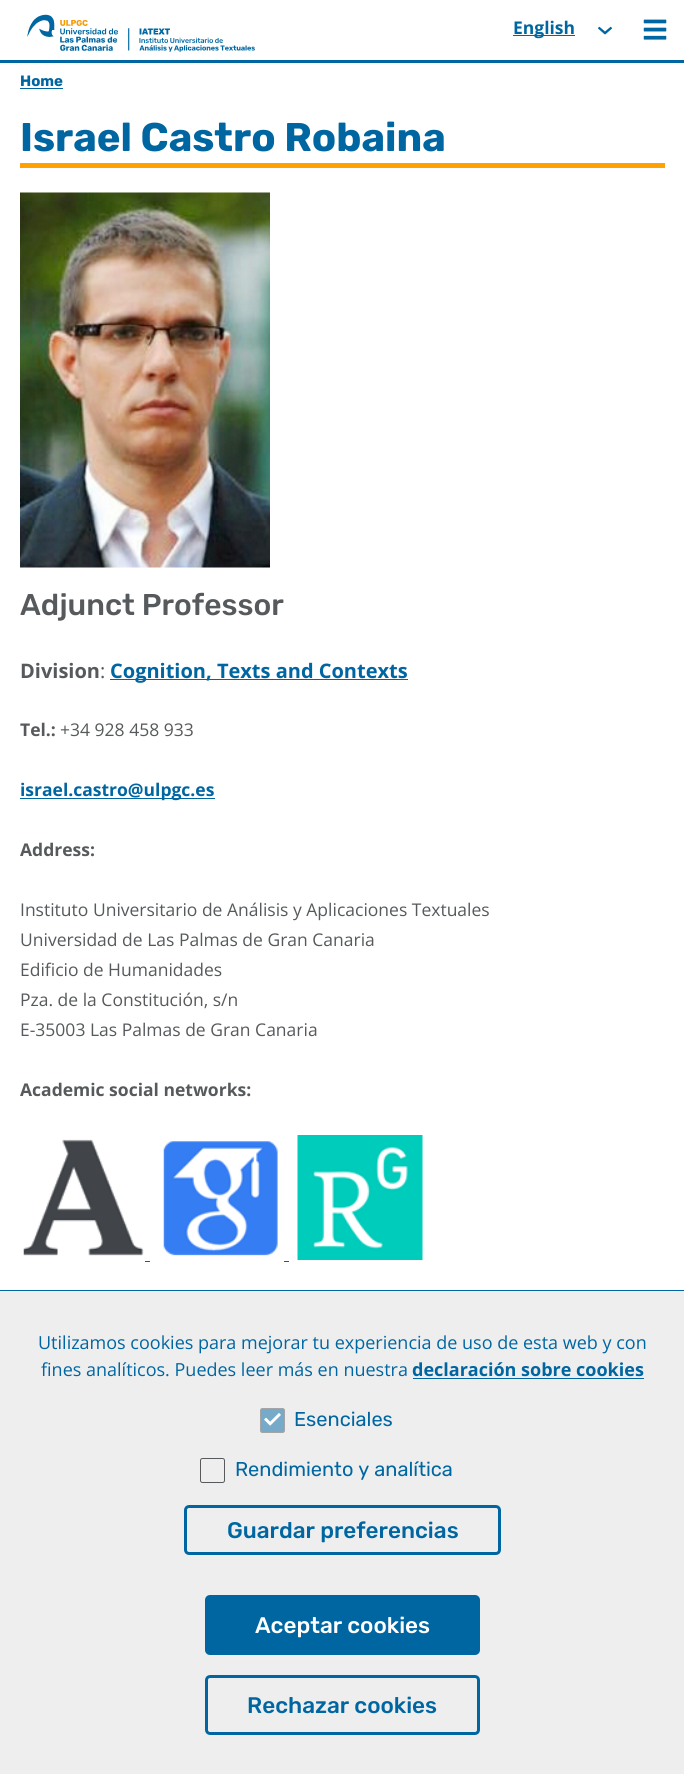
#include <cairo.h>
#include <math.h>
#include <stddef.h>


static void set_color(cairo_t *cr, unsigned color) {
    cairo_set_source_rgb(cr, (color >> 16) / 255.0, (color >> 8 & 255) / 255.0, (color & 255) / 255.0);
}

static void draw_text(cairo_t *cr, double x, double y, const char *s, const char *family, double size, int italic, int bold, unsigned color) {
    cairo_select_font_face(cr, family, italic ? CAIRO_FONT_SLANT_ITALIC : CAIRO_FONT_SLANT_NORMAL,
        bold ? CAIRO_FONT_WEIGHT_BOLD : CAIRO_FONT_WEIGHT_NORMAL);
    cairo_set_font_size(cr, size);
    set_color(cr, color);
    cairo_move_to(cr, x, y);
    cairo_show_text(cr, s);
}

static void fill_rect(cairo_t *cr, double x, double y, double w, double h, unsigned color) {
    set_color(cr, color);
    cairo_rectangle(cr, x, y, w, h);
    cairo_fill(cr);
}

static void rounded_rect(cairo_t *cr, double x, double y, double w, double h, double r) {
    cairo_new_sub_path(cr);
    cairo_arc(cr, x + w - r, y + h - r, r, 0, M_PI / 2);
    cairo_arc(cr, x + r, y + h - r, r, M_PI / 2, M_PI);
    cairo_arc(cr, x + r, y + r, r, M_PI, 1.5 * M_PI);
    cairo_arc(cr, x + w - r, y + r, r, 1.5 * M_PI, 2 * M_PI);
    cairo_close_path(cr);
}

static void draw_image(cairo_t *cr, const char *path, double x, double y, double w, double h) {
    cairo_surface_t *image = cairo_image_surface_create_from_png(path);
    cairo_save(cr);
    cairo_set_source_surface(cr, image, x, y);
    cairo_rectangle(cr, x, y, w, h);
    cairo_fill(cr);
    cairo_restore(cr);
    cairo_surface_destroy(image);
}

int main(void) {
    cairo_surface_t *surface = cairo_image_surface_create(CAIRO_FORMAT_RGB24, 684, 1774);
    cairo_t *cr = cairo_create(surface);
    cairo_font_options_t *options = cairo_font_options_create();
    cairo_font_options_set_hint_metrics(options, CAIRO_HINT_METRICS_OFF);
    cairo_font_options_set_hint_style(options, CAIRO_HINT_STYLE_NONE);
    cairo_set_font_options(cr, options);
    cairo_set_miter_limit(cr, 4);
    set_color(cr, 0xFFFFFF);
    cairo_paint(cr);
    fill_rect(cr, 0, 60, 684, 3, 0x0066A1);
    draw_image(cr, "assets/img1.png", 27, 14, 228, 38);
    fill_rect(cr, 513, 35, 62, 1, 0x0066A1);
    draw_text(cr, 513, 34, "English", "Open Sans", 17.5, 0, 1, 0x0066A1);
    draw_image(cr, "assets/img2.png", 598, 26, 15, 9);
    draw_image(cr, "assets/img3.png", 643, 19, 24, 21);
    draw_text(cr, 20, 86, "Home", "Rubik", 15, 0, 1, 0x0066A1);
    fill_rect(cr, 20, 88, 43, 1, 0x0066A1);
    draw_text(cr, 20, 151, "Israel Castro Robaina", "Rubik", 40, 0, 1, 0x0066A1);
    fill_rect(cr, 20, 163, 645, 5, 0xFFA100);
    draw_image(cr, "assets/img4.png", 20, 192, 250, 376);
    draw_text(cr, 20, 615, "Adjunct Professor", "Rubik Medium", 30, 0, 0, 0x565A5C);
    draw_text(cr, 20, 678, "Division", "Open Sans", 20, 0, 1, 0x565A5C);
    draw_text(cr, 100, 678, ":", "Open Sans", 20, 0, 0, 0x565A5C);
    fill_rect(cr, 110, 679, 298, 1, 0x0066A1);
    draw_text(cr, 110, 678, "Cognition, Texts and Contexts", "Open Sans", 20, 0, 1, 0x0066A1);
    draw_text(cr, 20, 736, "Tel.:", "Open Sans", 17.5, 0, 1, 0x565A5C);
    draw_text(cr, 60, 736, "+34 928 458 933", "Open Sans", 17.5, 0, 0, 0x565A5C);
    fill_rect(cr, 20, 798, 195, 1, 0x0066A1);
    draw_text(cr, 20, 796, "israel.castro@ulpgc.es", "Open Sans", 17.5, 0, 1, 0x0066A1);
    draw_text(cr, 20, 856, "Address:", "Open Sans", 17.5, 0, 1, 0x565A5C);
    draw_text(cr, 20, 916, "Instituto Universitario de Análisis y Aplicaciones Textuales", "Open Sans", 17.5, 0, 0, 0x565A5C);
    draw_text(cr, 20, 946, "Universidad de Las Palmas de Gran Canaria", "Open Sans", 17.5, 0, 0, 0x565A5C);
    draw_text(cr, 20, 976, "Edificio de Humanidades", "Open Sans", 17.5, 0, 0, 0x565A5C);
    draw_text(cr, 20, 1006, "Pza. de la Constitución, s/n", "Open Sans", 17.5, 0, 0, 0x565A5C);
    draw_text(cr, 20, 1036, "E-35003 Las Palmas de Gran Canaria", "Open Sans", 17.5, 0, 0, 0x565A5C);
    draw_text(cr, 20, 1096, "Academic social networks:", "Open Sans", 17.5, 0, 1, 0x565A5C);
    draw_image(cr, "assets/img5.png", 23, 1139, 121, 117);
    draw_image(cr, "assets/img6.png", 163, 1141, 115, 115);
    draw_image(cr, "assets/img7.png", 297, 1135, 126, 125);
    fill_rect(cr, 145, 1261, 5, 1, 0x0066A1);
    fill_rect(cr, 284, 1261, 5, 1, 0x0066A1);
    fill_rect(cr, 0, 1291, 684, 483, 0xEEEEEE);
    fill_rect(cr, 0, 1290, 684, 1, 0x0066A1);
    draw_text(cr, 38, 1349, "Utilizamos cookies para mejorar tu experiencia de uso de esta web y con", "Open Sans", 18, 0, 0, 0x0066A1);
    draw_text(cr, 41, 1376, "fines analíticos. Puedes leer más en nuestra", "Open Sans", 18, 0, 0, 0x0066A1);
    draw_text(cr, 412, 1376, "declaración sobre cookies", "Open Sans", 18, 0, 1, 0x0066A1);
    fill_rect(cr, 413, 1378, 231, 1, 0x0066A1);
    set_color(cr, 0x77AAC8);
    rounded_rect(cr, 260.5, 1408.5, 24, 24, 2);
    cairo_fill_preserve(cr);
    set_color(cr, 0xA2A4A5);
    cairo_set_line_width(cr, 1);
    cairo_stroke(cr);
    draw_text(cr, 294, 1426, "Esenciales", "Rubik", 20, 0, 0, 0x0066A1);
    draw_image(cr, "assets/img8.png", 264, 1413, 17, 13);
    rounded_rect(cr, 200.5, 1458.5, 24, 24, 2);
    set_color(cr, 0x565A5C);
    cairo_stroke(cr);
    draw_text(cr, 235, 1476, "Rendimiento y analítica", "Rubik", 20, 0, 0, 0x0066A1);
    rounded_rect(cr, 185.5, 1506.5, 314, 47, 3.5);
    cairo_set_line_width(cr, 3);
    cairo_stroke(cr);
    draw_text(cr, 227, 1538, "Guardar preferencias", "Rubik Medium", 22.5, 0, 0, 0x0066A1);
    rounded_rect(cr, 205, 1595, 275, 60, 5);
    cairo_fill(cr);
    draw_text(cr, 255, 1633, "Aceptar cookies", "Rubik Medium", 22.5, 0, 0, 0xFFFFFF);
    rounded_rect(cr, 206.5, 1676.5, 272, 57, 3.5);
    set_color(cr, 0x0066A1);
    cairo_stroke(cr);
    draw_text(cr, 247, 1713, "Rechazar cookies", "Rubik Medium", 22.5, 0, 0, 0x0066A1);
    cairo_surface_write_to_png(surface, "output.png");
    cairo_font_options_destroy(options);
    cairo_destroy(cr);
    cairo_surface_destroy(surface);
    return 0;
}
